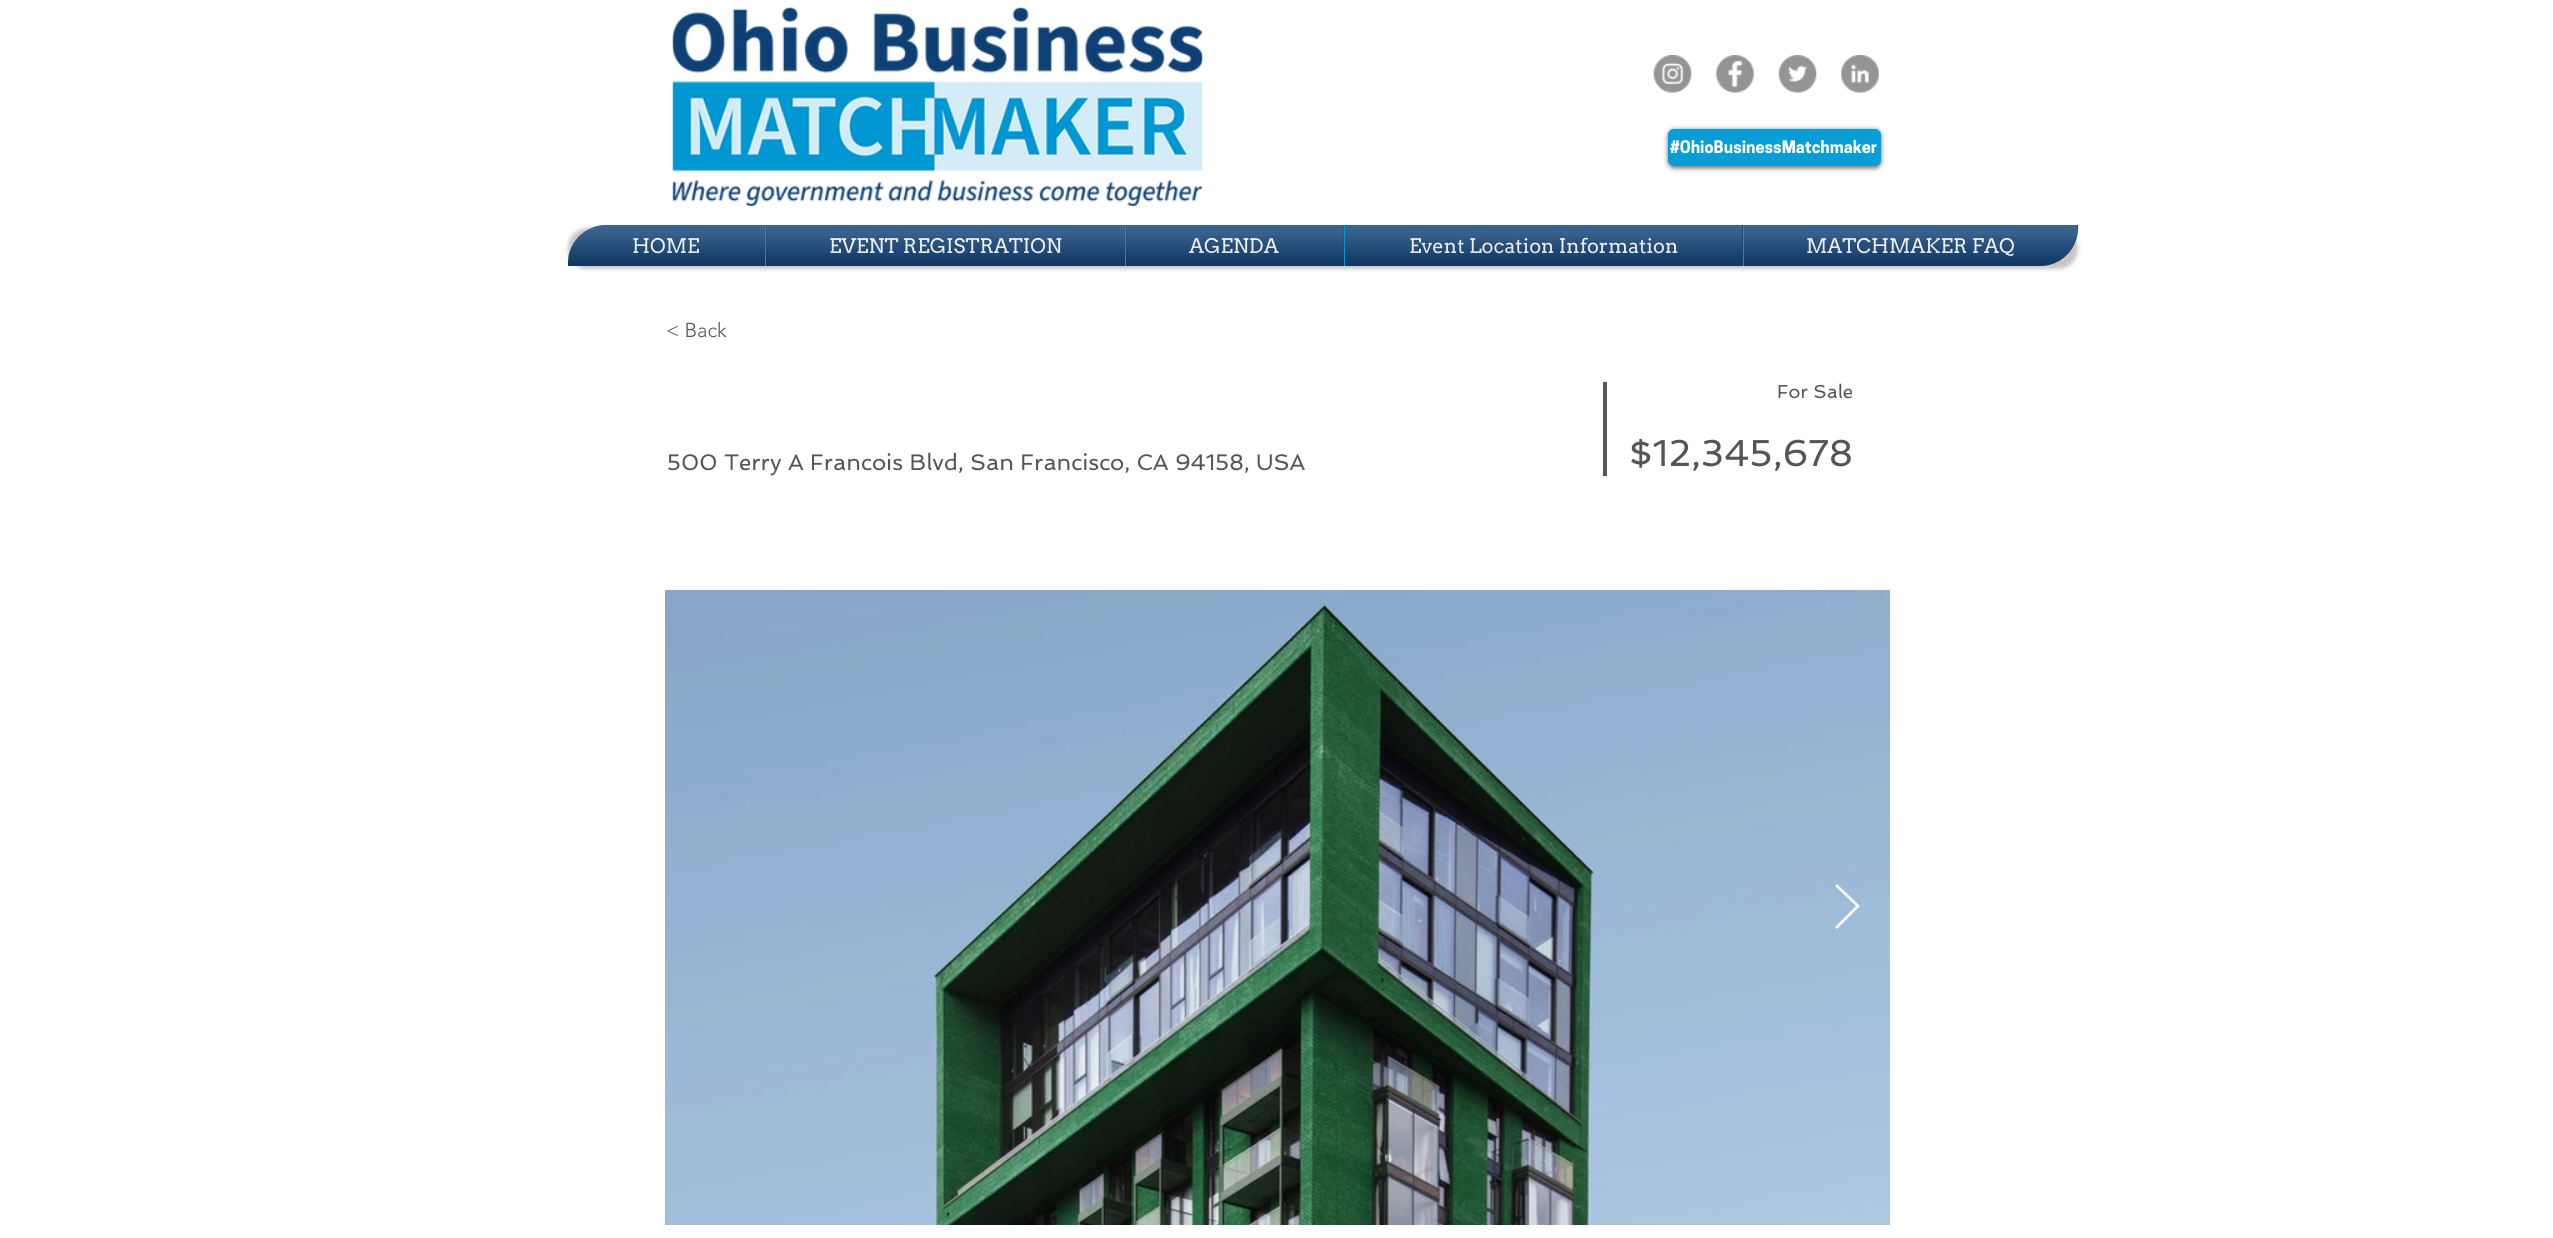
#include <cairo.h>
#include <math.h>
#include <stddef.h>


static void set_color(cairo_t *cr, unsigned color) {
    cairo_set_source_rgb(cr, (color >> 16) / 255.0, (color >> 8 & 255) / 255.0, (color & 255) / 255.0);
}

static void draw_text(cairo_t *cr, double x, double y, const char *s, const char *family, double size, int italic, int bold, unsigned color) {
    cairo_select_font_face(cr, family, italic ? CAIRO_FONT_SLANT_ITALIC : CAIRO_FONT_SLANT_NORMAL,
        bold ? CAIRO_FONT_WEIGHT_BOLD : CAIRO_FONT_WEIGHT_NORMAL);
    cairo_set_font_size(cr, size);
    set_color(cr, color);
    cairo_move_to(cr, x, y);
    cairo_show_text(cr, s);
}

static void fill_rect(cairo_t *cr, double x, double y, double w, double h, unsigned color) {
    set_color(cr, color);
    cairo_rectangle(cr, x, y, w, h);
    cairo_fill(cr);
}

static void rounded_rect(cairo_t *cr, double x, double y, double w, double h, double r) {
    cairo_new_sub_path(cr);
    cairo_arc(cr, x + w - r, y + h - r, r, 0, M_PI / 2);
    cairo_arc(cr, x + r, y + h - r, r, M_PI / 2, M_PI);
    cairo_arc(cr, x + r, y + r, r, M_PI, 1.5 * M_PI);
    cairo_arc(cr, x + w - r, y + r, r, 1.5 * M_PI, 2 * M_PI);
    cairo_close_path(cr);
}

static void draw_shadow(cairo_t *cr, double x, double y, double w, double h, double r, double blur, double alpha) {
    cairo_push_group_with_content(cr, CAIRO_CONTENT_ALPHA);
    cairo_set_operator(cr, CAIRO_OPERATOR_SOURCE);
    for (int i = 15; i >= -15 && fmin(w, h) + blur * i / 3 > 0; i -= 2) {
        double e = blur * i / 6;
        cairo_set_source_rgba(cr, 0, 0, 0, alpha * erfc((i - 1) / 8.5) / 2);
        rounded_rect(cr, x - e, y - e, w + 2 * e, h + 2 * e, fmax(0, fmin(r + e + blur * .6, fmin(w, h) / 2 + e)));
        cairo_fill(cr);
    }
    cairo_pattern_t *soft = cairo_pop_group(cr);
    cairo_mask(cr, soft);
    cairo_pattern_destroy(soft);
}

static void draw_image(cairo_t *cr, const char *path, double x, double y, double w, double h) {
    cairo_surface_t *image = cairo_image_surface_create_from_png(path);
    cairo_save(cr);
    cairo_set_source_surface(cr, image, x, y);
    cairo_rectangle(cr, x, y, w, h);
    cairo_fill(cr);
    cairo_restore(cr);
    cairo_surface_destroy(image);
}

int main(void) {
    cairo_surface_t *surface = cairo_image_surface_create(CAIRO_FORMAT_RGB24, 2553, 1238);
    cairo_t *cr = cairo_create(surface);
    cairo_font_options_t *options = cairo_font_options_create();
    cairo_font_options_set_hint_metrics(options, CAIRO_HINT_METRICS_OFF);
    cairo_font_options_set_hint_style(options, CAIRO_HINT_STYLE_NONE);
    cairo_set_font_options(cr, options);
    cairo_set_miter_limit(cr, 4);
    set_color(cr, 0xFFFFFF);
    cairo_paint(cr);
    draw_image(cr, "assets/img1.png", 672, 7, 531, 200);
    draw_image(cr, "assets/img2.png", 1653, 55, 39, 38);
    draw_image(cr, "assets/img3.png", 1716, 55, 38, 38);
    draw_image(cr, "assets/img4.png", 1778, 55, 39, 38);
    draw_image(cr, "assets/img5.png", 1841, 55, 38, 38);
    set_color(cr, 0x000000);
    draw_shadow(cr, 1668, 130, 213, 38, 6, 2.5, 0.6);
    set_color(cr, 0x0098D3);
    rounded_rect(cr, 1668, 129, 213, 37, 6);
    cairo_fill(cr);
    cairo_set_source_rgba(cr, 1, 1, 1, 0.04);
    cairo_rectangle(cr, 1668, 129, 213, 37);
    cairo_fill(cr);
    draw_text(cr, 1670, 153, "#OhioBusinessMatchmaker", "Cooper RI", 16.25, 0, 1, 0xFFFFFF);
    set_color(cr, 0xA29E9E);
    draw_shadow(cr, 568, 228, 1510, 41, 38, 2, 0.6);
    draw_image(cr, "assets/img6.png", 568, 225, 1510, 41);
    draw_image(cr, "assets/img7.png", 568, 235, 1507, 31);
    set_color(cr, 0x0E3F75);
    cairo_new_path(cr);
    cairo_move_to(cr, 606, 225);
    cairo_line_to(cr, 765, 225);
    cairo_line_to(cr, 765, 266);
    cairo_line_to(cr, 568, 266);
    cairo_line_to(cr, 568, 263);
    cairo_curve_to(cr, 568, 242, 585, 225, 606, 225);
    cairo_close_path(cr);
    cairo_fill(cr);
    draw_text(cr, 632, 253, "HOME", "Arvo", 20, 0, 0, 0xFFFFFF);
    draw_image(cr, "assets/img8.png", 568, 225, 197, 41);
    draw_image(cr, "assets/img9.png", 568, 236, 197, 30);
    fill_rect(cr, 766, 225, 359, 41, 0x0E3F75);
    fill_rect(cr, 765, 225, 1, 41, 0x0098D3);
    draw_text(cr, 829, 253, "EVENT REGISTRATION", "Arvo", 20, 0, 0, 0xFFFFFF);
    draw_image(cr, "assets/img10.png", 766, 225, 359, 41);
    draw_image(cr, "assets/img11.png", 766, 236, 359, 30);
    fill_rect(cr, 1126, 225, 218, 41, 0x0E3F75);
    fill_rect(cr, 1125, 225, 1, 41, 0x0098D3);
    draw_text(cr, 1189, 253, "AGENDA", "Arvo", 20, 0, 0, 0xFFFFFF);
    draw_image(cr, "assets/img12.png", 1126, 225, 218, 41);
    draw_image(cr, "assets/img13.png", 1126, 236, 218, 30);
    fill_rect(cr, 1345, 225, 398, 41, 0x0E3F75);
    fill_rect(cr, 1344, 225, 1, 41, 0x0098D3);
    draw_text(cr, 1409, 253, "Event Location Information", "Arvo", 20, 0, 0, 0xFFFFFF);
    draw_image(cr, "assets/img14.png", 1345, 225, 398, 41);
    draw_image(cr, "assets/img15.png", 1345, 236, 398, 30);
    set_color(cr, 0x0E3F75);
    cairo_new_path(cr);
    cairo_move_to(cr, 1743, 225);
    cairo_line_to(cr, 2078, 225);
    cairo_line_to(cr, 2078, 228);
    cairo_curve_to(cr, 2078, 249, 2061, 266, 2040, 266);
    cairo_line_to(cr, 1743, 266);
    cairo_close_path(cr);
    cairo_fill(cr);
    fill_rect(cr, 1743, 225, 1, 41, 0x0098D3);
    draw_text(cr, 1806, 253, "MATCHMAKER FAQ", "Arvo", 20, 0, 0, 0xFFFFFF);
    draw_image(cr, "assets/img16.png", 1744, 225, 334, 41);
    draw_image(cr, "assets/img17.png", 1744, 236, 332, 30);
    draw_text(cr, 666, 337, "< Back", "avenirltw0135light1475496 Light", 20, 0, 0, 0x555555);
    draw_text(cr, 667, 470, "500 Terry A Francois Blvd, San Francisco, CA 94158, USA", "Spinnaker", 22.5, 0, 0, 0x555555);
    fill_rect(cr, 1603, 382, 4, 94, 0x555555);
    draw_text(cr, 1777, 398, "For Sale", "Spinnaker", 18.75, 0, 0, 0x555555);
    draw_text(cr, 1629, 466, "$12,345,678", "Spinnaker", 37.5, 0, 0, 0x555555);
    draw_image(cr, "assets/img18.png", 665, 590, 1225, 635);
    cairo_set_source_rgba(cr, 1, 1, 1, 0.9);
    cairo_new_path(cr);
    cairo_move_to(cr, 1835, 886);
    cairo_line_to(cr, 1837, 884);
    cairo_line_to(cr, 1860, 906);
    cairo_line_to(cr, 1837, 929);
    cairo_line_to(cr, 1835, 927);
    cairo_line_to(cr, 1856, 906);
    cairo_close_path(cr);
    cairo_fill(cr);
    cairo_surface_write_to_png(surface, "output.png");
    cairo_font_options_destroy(options);
    cairo_destroy(cr);
    cairo_surface_destroy(surface);
    return 0;
}
